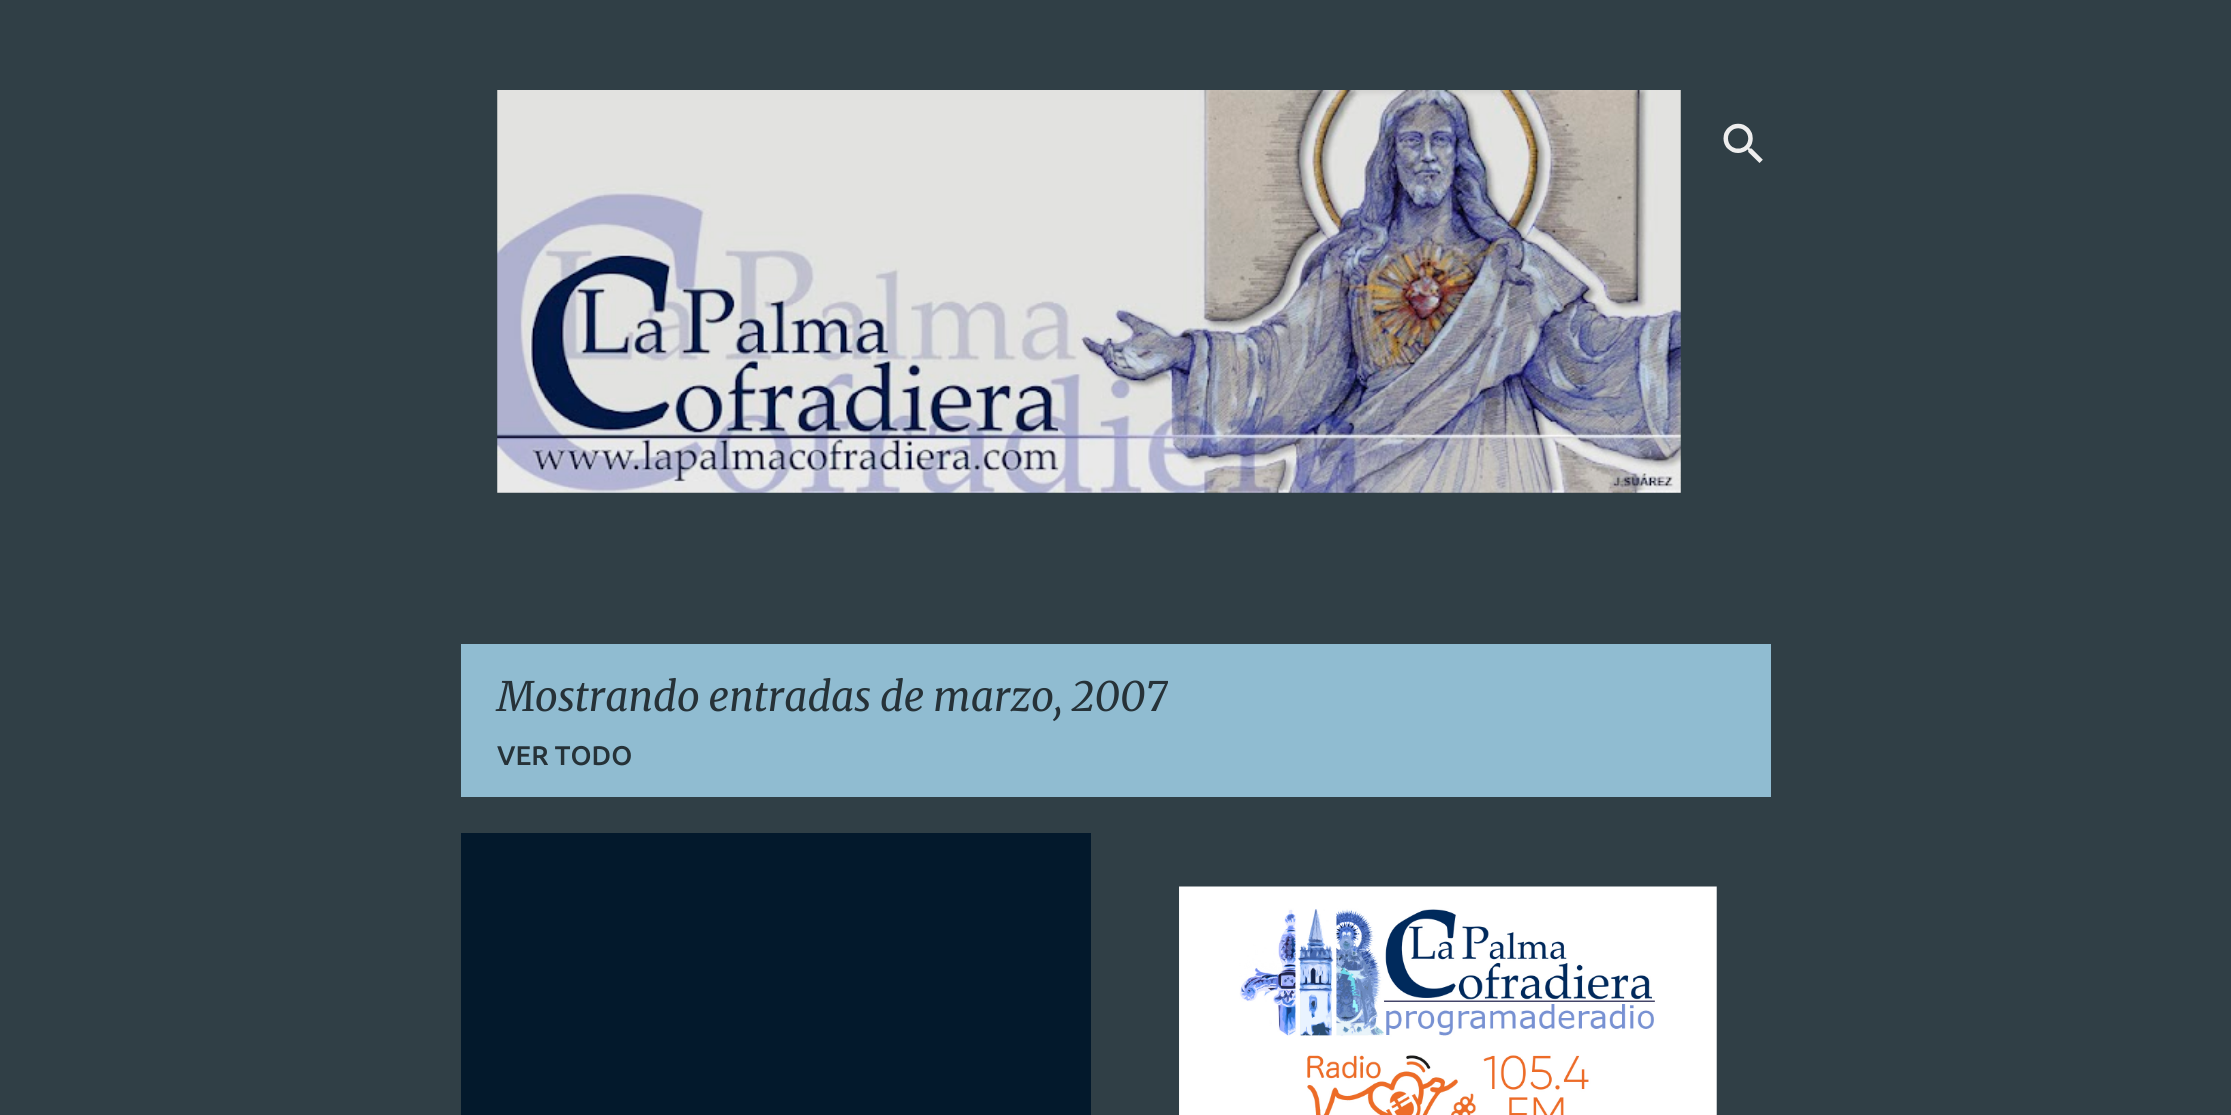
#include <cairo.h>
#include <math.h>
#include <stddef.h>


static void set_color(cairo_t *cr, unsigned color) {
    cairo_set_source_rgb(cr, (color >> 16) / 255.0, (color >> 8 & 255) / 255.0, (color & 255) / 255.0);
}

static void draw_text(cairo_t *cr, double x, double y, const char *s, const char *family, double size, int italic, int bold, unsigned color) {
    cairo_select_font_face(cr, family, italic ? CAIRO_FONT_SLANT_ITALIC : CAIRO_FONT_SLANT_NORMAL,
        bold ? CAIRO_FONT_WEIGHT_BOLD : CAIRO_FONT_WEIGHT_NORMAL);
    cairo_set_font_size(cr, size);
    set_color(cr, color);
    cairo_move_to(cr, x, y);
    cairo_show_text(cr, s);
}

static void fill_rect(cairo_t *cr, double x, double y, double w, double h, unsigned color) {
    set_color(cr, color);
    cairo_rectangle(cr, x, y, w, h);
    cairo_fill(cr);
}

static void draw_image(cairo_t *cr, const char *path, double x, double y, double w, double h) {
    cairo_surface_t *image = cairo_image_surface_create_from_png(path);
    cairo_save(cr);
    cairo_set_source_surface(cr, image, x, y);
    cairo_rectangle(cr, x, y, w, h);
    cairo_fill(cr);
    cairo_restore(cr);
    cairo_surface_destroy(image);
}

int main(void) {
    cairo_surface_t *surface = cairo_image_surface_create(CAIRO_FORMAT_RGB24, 2231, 1115);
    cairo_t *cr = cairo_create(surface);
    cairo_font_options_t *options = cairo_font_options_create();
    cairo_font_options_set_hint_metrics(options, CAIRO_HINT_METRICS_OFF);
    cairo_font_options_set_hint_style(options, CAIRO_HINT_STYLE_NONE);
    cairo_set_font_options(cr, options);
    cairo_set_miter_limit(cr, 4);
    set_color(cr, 0x303F46);
    cairo_paint(cr);
    draw_image(cr, "assets/img1.png", 497, 90, 1184, 403);
    draw_image(cr, "assets/img2.png", 1723, 123, 40, 40);
    fill_rect(cr, 461, 644, 1310, 153, 0x90BCD1);
    draw_text(cr, 497, 711, "Mostrando entradas de marzo, 2007", "Merriweather", 40.5, 1, 0, 0x263238);
    draw_text(cr, 497, 765, "VER TODO", "Ubuntu Medium", 27, 0, 0, 0x263238);
    fill_rect(cr, 461, 833, 630, 282, 0x03192C);
    draw_image(cr, "assets/img3.png", 1179, 886, 538, 229);
    cairo_surface_write_to_png(surface, "output.png");
    cairo_font_options_destroy(options);
    cairo_destroy(cr);
    cairo_surface_destroy(surface);
    return 0;
}
